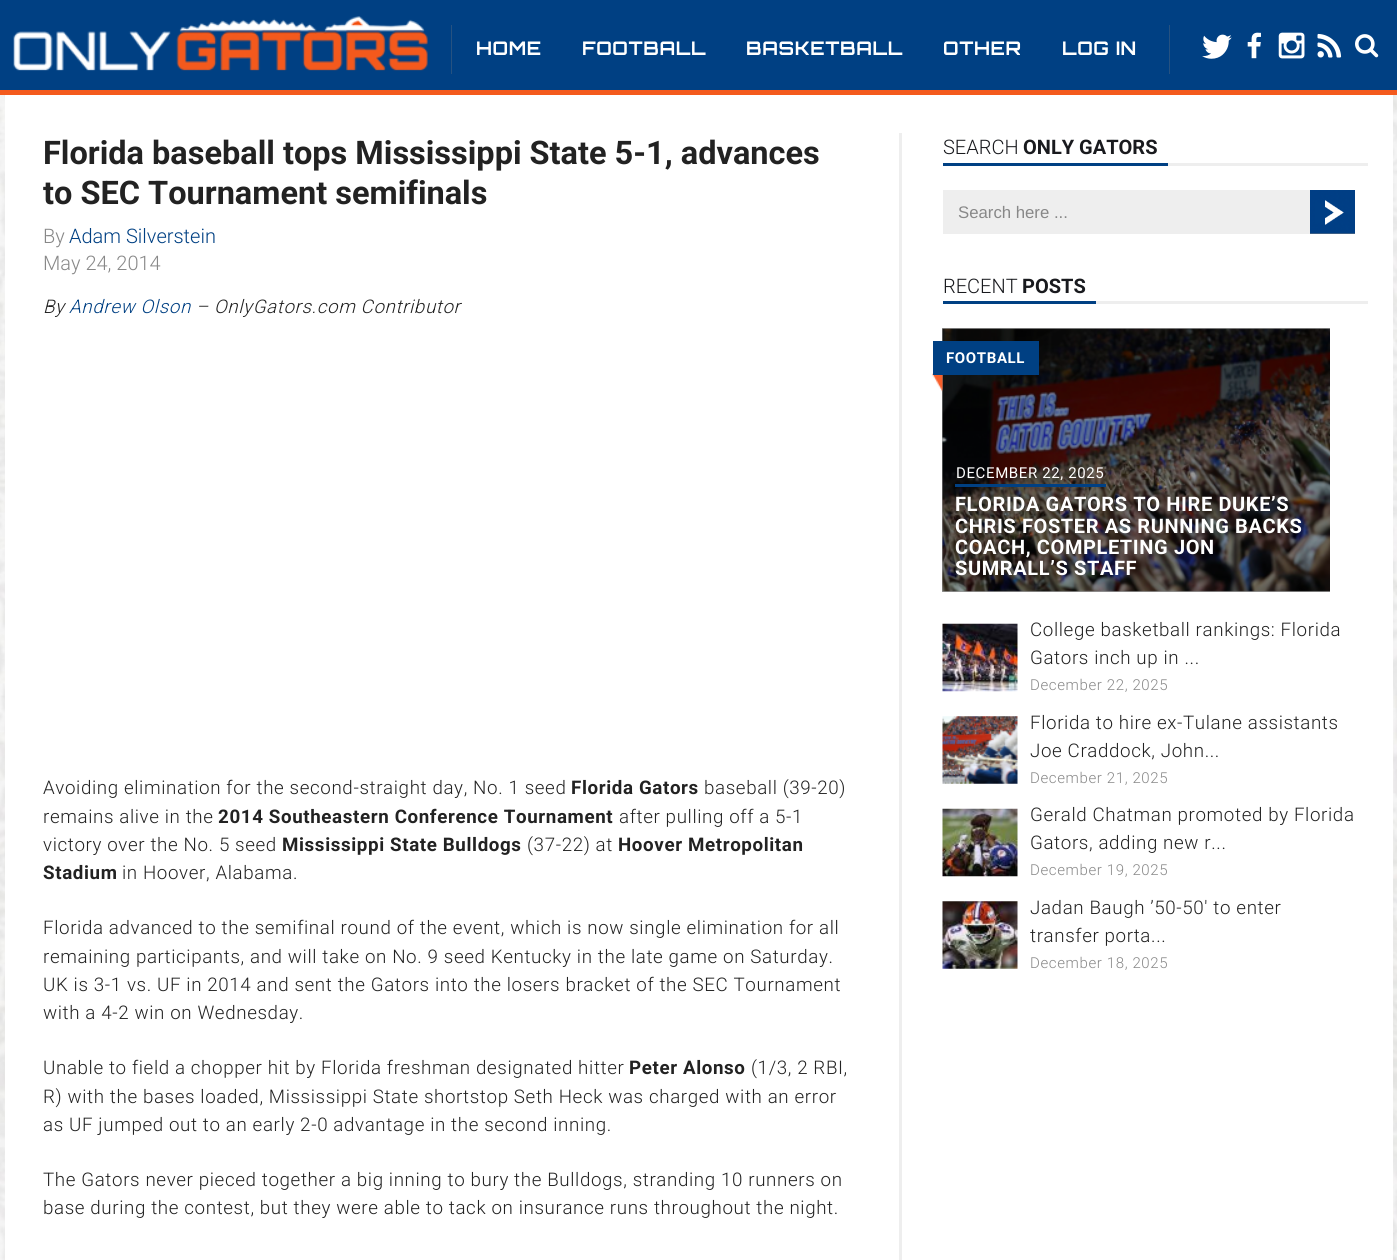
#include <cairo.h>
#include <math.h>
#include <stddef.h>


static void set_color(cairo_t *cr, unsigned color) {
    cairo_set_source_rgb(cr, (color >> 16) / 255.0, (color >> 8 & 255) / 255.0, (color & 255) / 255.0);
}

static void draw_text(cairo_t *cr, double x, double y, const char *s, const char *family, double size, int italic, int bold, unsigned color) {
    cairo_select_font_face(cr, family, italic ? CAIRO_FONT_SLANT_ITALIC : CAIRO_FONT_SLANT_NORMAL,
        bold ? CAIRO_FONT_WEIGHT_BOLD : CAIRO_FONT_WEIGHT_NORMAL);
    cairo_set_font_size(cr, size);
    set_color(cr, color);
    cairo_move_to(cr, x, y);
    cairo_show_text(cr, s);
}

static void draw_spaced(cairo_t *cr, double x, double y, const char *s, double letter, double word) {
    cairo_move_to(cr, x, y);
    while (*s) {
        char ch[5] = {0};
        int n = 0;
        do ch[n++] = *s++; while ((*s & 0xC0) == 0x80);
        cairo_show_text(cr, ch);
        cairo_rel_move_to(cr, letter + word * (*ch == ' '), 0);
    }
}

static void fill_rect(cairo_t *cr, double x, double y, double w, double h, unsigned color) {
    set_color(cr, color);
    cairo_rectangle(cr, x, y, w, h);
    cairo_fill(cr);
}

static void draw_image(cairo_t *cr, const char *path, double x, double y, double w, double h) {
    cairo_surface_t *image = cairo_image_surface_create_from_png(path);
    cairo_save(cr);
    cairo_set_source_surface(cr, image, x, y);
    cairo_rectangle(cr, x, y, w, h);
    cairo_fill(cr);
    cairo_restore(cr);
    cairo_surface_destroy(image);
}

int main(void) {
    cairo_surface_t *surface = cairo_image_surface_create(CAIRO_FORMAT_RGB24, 1397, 1260);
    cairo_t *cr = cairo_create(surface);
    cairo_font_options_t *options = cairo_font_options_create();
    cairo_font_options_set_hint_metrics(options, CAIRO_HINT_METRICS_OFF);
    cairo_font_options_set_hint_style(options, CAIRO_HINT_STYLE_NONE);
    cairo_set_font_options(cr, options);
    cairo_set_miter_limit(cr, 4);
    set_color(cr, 0xFFFFFF);
    cairo_paint(cr);
    fill_rect(cr, 0, 0, 1397, 90, 0x004083);
    fill_rect(cr, 0, 90, 1397, 5, 0xF45A1D);
    draw_image(cr, "assets/img1.png", 13, 16, 415, 55);
    fill_rect(cr, 1169, 25, 1, 49, 0x265281);
    fill_rect(cr, 451, 25, 1, 49, 0x265281);
    cairo_select_font_face(cr, "Orbitron", CAIRO_FONT_SLANT_NORMAL, CAIRO_FONT_WEIGHT_BOLD);
    cairo_set_font_size(cr, 18.75);
    set_color(cr, 0xFFFFFF);
    draw_spaced(cr, 476, 55, "HOME", 0.62, 0);
    draw_spaced(cr, 582, 55, "FOOTBALL", 0.62, 0);
    draw_spaced(cr, 746, 55, "BASKETBALL", 0.62, 0);
    draw_spaced(cr, 943, 55, "OTHER", 0.62, 0);
    draw_spaced(cr, 1062, 55, "LOG IN", 0.62, 0);
    draw_image(cr, "assets/img2.png", 1202, 34, 30, 25);
    draw_image(cr, "assets/img3.png", 1247, 32, 14, 27);
    draw_image(cr, "assets/img4.png", 1278, 32, 27, 27);
    draw_image(cr, "assets/img5.png", 1317, 33, 25, 25);
    draw_image(cr, "assets/img6.png", 1355, 34, 24, 24);
    draw_image(cr, "assets/img7.png", 0, 95, 1397, 1165);
    fill_rect(cr, 5, 95, 1388, 1165, 0xFFFFFF);
    fill_rect(cr, 899, 133, 3, 1127, 0xEEEEEE);
    draw_text(cr, 43, 164, "Florida baseball tops Mississippi State 5-1, advances", "Roboto", 32.5, 0, 1, 0x222222);
    draw_text(cr, 43, 204, "to SEC Tournament semifinals", "Roboto", 32.5, 0, 1, 0x222222);
    draw_text(cr, 43, 243, "By", "Roboto Light", 20, 0, 0, 0x888888);
    draw_text(cr, 69, 243, "Adam Silverstein", "Roboto Light", 20, 0, 0, 0x004083);
    draw_text(cr, 43, 270, "May 24, 2014", "Roboto Light", 20, 0, 0, 0x888888);
    cairo_select_font_face(cr, "Roboto Light", CAIRO_FONT_SLANT_ITALIC, CAIRO_FONT_WEIGHT_NORMAL);
    cairo_set_font_size(cr, 18.75);
    set_color(cr, 0x222222);
    draw_spaced(cr, 43, 313, "By", 0.62, 0);
    set_color(cr, 0x004083);
    draw_spaced(cr, 69, 313, "Andrew Olson", 0.62, 0);
    set_color(cr, 0x222222);
    draw_spaced(cr, 196, 313, "– OnlyGators.com Contributor", 0.62, 0);
    cairo_select_font_face(cr, "Roboto Light", CAIRO_FONT_SLANT_NORMAL, CAIRO_FONT_WEIGHT_NORMAL);
    draw_spaced(cr, 43, 794, "Avoiding elimination for the second-straight day, No. 1 seed", 0.62, 0);
    cairo_select_font_face(cr, "Roboto", CAIRO_FONT_SLANT_NORMAL, CAIRO_FONT_WEIGHT_BOLD);
    draw_spaced(cr, 571, 794, "Florida Gators", 0.62, 0);
    cairo_select_font_face(cr, "Roboto Light", CAIRO_FONT_SLANT_NORMAL, CAIRO_FONT_WEIGHT_NORMAL);
    draw_spaced(cr, 704, 794, "baseball (39-20)", 0.62, 0);
    draw_spaced(cr, 43, 823, "remains alive in the", 0.62, 0);
    cairo_select_font_face(cr, "Roboto", CAIRO_FONT_SLANT_NORMAL, CAIRO_FONT_WEIGHT_BOLD);
    draw_spaced(cr, 218, 823, "2014 Southeastern Conference Tournament", 0.62, 0);
    cairo_select_font_face(cr, "Roboto Light", CAIRO_FONT_SLANT_NORMAL, CAIRO_FONT_WEIGHT_NORMAL);
    draw_spaced(cr, 619, 823, "after pulling off a 5-1", 0.62, 0);
    draw_spaced(cr, 43, 851, "victory over the No. 5 seed", 0.62, 0);
    cairo_select_font_face(cr, "Roboto", CAIRO_FONT_SLANT_NORMAL, CAIRO_FONT_WEIGHT_BOLD);
    draw_spaced(cr, 282, 851, "Mississippi State Bulldogs", 0.62, 0);
    cairo_select_font_face(cr, "Roboto Light", CAIRO_FONT_SLANT_NORMAL, CAIRO_FONT_WEIGHT_NORMAL);
    draw_spaced(cr, 527, 851, "(37-22) at", 0.62, 0);
    cairo_select_font_face(cr, "Roboto", CAIRO_FONT_SLANT_NORMAL, CAIRO_FONT_WEIGHT_BOLD);
    draw_spaced(cr, 618, 851, "Hoover Metropolitan", 0.62, 0);
    draw_spaced(cr, 43, 879, "Stadium", 0.62, 0);
    cairo_select_font_face(cr, "Roboto Light", CAIRO_FONT_SLANT_NORMAL, CAIRO_FONT_WEIGHT_NORMAL);
    draw_spaced(cr, 122, 879, "in Hoover, Alabama.", 0.62, 0);
    draw_spaced(cr, 43, 934, "Florida advanced to the semifinal round of the event, which is now single elimination for all", 0.62, 0);
    draw_spaced(cr, 43, 963, "remaining participants, and will take on No. 9 seed Kentucky in the late game on Saturday.", 0.62, 0);
    draw_spaced(cr, 43, 991, "UK is 3-1 vs. UF in 2014 and sent the Gators into the losers bracket of the SEC Tournament", 0.62, 0);
    draw_spaced(cr, 43, 1019, "with a 4-2 win on Wednesday.", 0.62, 0);
    draw_spaced(cr, 43, 1074, "Unable to field a chopper hit by Florida freshman designated hitter", 0.62, 0);
    cairo_select_font_face(cr, "Roboto", CAIRO_FONT_SLANT_NORMAL, CAIRO_FONT_WEIGHT_BOLD);
    draw_spaced(cr, 629, 1074, "Peter Alonso", 0.62, 0);
    cairo_select_font_face(cr, "Roboto Light", CAIRO_FONT_SLANT_NORMAL, CAIRO_FONT_WEIGHT_NORMAL);
    draw_spaced(cr, 751, 1074, "(1/3, 2 RBI,", 0.62, 0);
    draw_spaced(cr, 43, 1103, "R) with the bases loaded, Mississippi State shortstop Seth Heck was charged with an error", 0.62, 0);
    draw_spaced(cr, 43, 1131, "as UF jumped out to an early 2-0 advantage in the second inning.", 0.62, 0);
    draw_spaced(cr, 43, 1186, "The Gators never pieced together a big inning to bury the Bulldogs, stranding 10 runners on", 0.62, 0);
    draw_spaced(cr, 43, 1214, "base during the contest, but they were able to tack on insurance runs throughout the night.", 0.62, 0);
    fill_rect(cr, 1168, 163, 200, 3, 0xEEEEEE);
    fill_rect(cr, 943, 163, 225, 3, 0x004083);
    draw_text(cr, 943, 154, "SEARCH", "Roboto Light", 20, 0, 0, 0x191A1E);
    draw_text(cr, 1023, 154, "ONLY GATORS", "Roboto", 20, 0, 1, 0x191A1E);
    fill_rect(cr, 943, 190, 367, 44, 0xEEEEEE);
    draw_text(cr, 958, 218, "Search here ...", "Liberation Sans", 16.75, 0, 0, 0x888888);
    fill_rect(cr, 1310, 233, 45, 1, 0x888888);
    draw_image(cr, "assets/img8.png", 1310, 190, 45, 44);
    fill_rect(cr, 1096, 301, 272, 3, 0xEEEEEE);
    fill_rect(cr, 943, 301, 153, 3, 0x004083);
    draw_text(cr, 943, 293, "RECENT", "Roboto Light", 20, 0, 0, 0x191A1E);
    draw_text(cr, 1022, 293, "POSTS", "Roboto", 20, 0, 1, 0x191A1E);
    draw_image(cr, "assets/img9.png", 942, 328, 388, 264);
    cairo_set_source_rgba(cr, 0, 0, 0, 0.4);
    cairo_rectangle(cr, 942, 328, 388, 264);
    cairo_fill(cr);
    draw_image(cr, "assets/img10.png", 932, 373, 11, 19);
    fill_rect(cr, 933, 341, 106, 34, 0x004083);
    cairo_set_font_size(cr, 15);
    set_color(cr, 0xFFFFFF);
    draw_spaced(cr, 946, 363, "FOOTBALL", 0.62, 0);
    cairo_select_font_face(cr, "Roboto", CAIRO_FONT_SLANT_NORMAL, CAIRO_FONT_WEIGHT_NORMAL);
    draw_spaced(cr, 956, 478, "DECEMBER 22, 2025", 0.62, 0);
    fill_rect(cr, 955, 484, 151, 3, 0x004083);
    cairo_select_font_face(cr, "Roboto", CAIRO_FONT_SLANT_NORMAL, CAIRO_FONT_WEIGHT_BOLD);
    cairo_set_font_size(cr, 20);
    set_color(cr, 0xFFFFFF);
    draw_spaced(cr, 955, 511, "FLORIDA GATORS TO HIRE DUKE’S", 0.62, 0);
    draw_spaced(cr, 955, 533, "CHRIS FOSTER AS RUNNING BACKS", 0.62, 0);
    draw_spaced(cr, 955, 554, "COACH, COMPLETING JON", 0.62, 0);
    draw_spaced(cr, 955, 575, "SUMRALL’S STAFF", 0.62, 0);
    draw_image(cr, "assets/img11.png", 942, 623, 76, 69);
    cairo_select_font_face(cr, "Roboto Light", CAIRO_FONT_SLANT_NORMAL, CAIRO_FONT_WEIGHT_NORMAL);
    cairo_set_font_size(cr, 18.75);
    set_color(cr, 0x222222);
    draw_spaced(cr, 1030, 636, "College basketball rankings: Florida", 0.62, 0);
    draw_spaced(cr, 1030, 664, "Gators inch up in ...", 0.62, 0);
    cairo_set_font_size(cr, 15);
    set_color(cr, 0x888888);
    draw_spaced(cr, 1030, 690, "December 22, 2025", 0.62, 0);
    draw_image(cr, "assets/img12.png", 942, 716, 76, 68);
    cairo_set_font_size(cr, 18.75);
    set_color(cr, 0x222222);
    draw_spaced(cr, 1030, 729, "Florida to hire ex-Tulane assistants", 0.62, 0);
    draw_spaced(cr, 1030, 757, "Joe Craddock, John...", 0.62, 0);
    cairo_set_font_size(cr, 15);
    set_color(cr, 0x888888);
    draw_spaced(cr, 1030, 783, "December 21, 2025", 0.62, 0);
    draw_image(cr, "assets/img13.png", 942, 808, 76, 69);
    cairo_set_font_size(cr, 18.75);
    set_color(cr, 0x222222);
    draw_spaced(cr, 1030, 821, "Gerald Chatman promoted by Florida", 0.62, 0);
    draw_spaced(cr, 1030, 849, "Gators, adding new r...", 0.62, 0);
    cairo_set_font_size(cr, 15);
    set_color(cr, 0x888888);
    draw_spaced(cr, 1030, 875, "December 19, 2025", 0.62, 0);
    draw_image(cr, "assets/img14.png", 942, 901, 76, 68);
    cairo_set_font_size(cr, 18.75);
    set_color(cr, 0x222222);
    draw_spaced(cr, 1030, 914, "Jadan Baugh ’50-50′ to enter", 0.62, 0);
    draw_spaced(cr, 1030, 942, "transfer porta...", 0.62, 0);
    cairo_set_font_size(cr, 15);
    set_color(cr, 0x888888);
    draw_spaced(cr, 1030, 968, "December 18, 2025", 0.62, 0);
    cairo_surface_write_to_png(surface, "output.png");
    cairo_font_options_destroy(options);
    cairo_destroy(cr);
    cairo_surface_destroy(surface);
    return 0;
}
